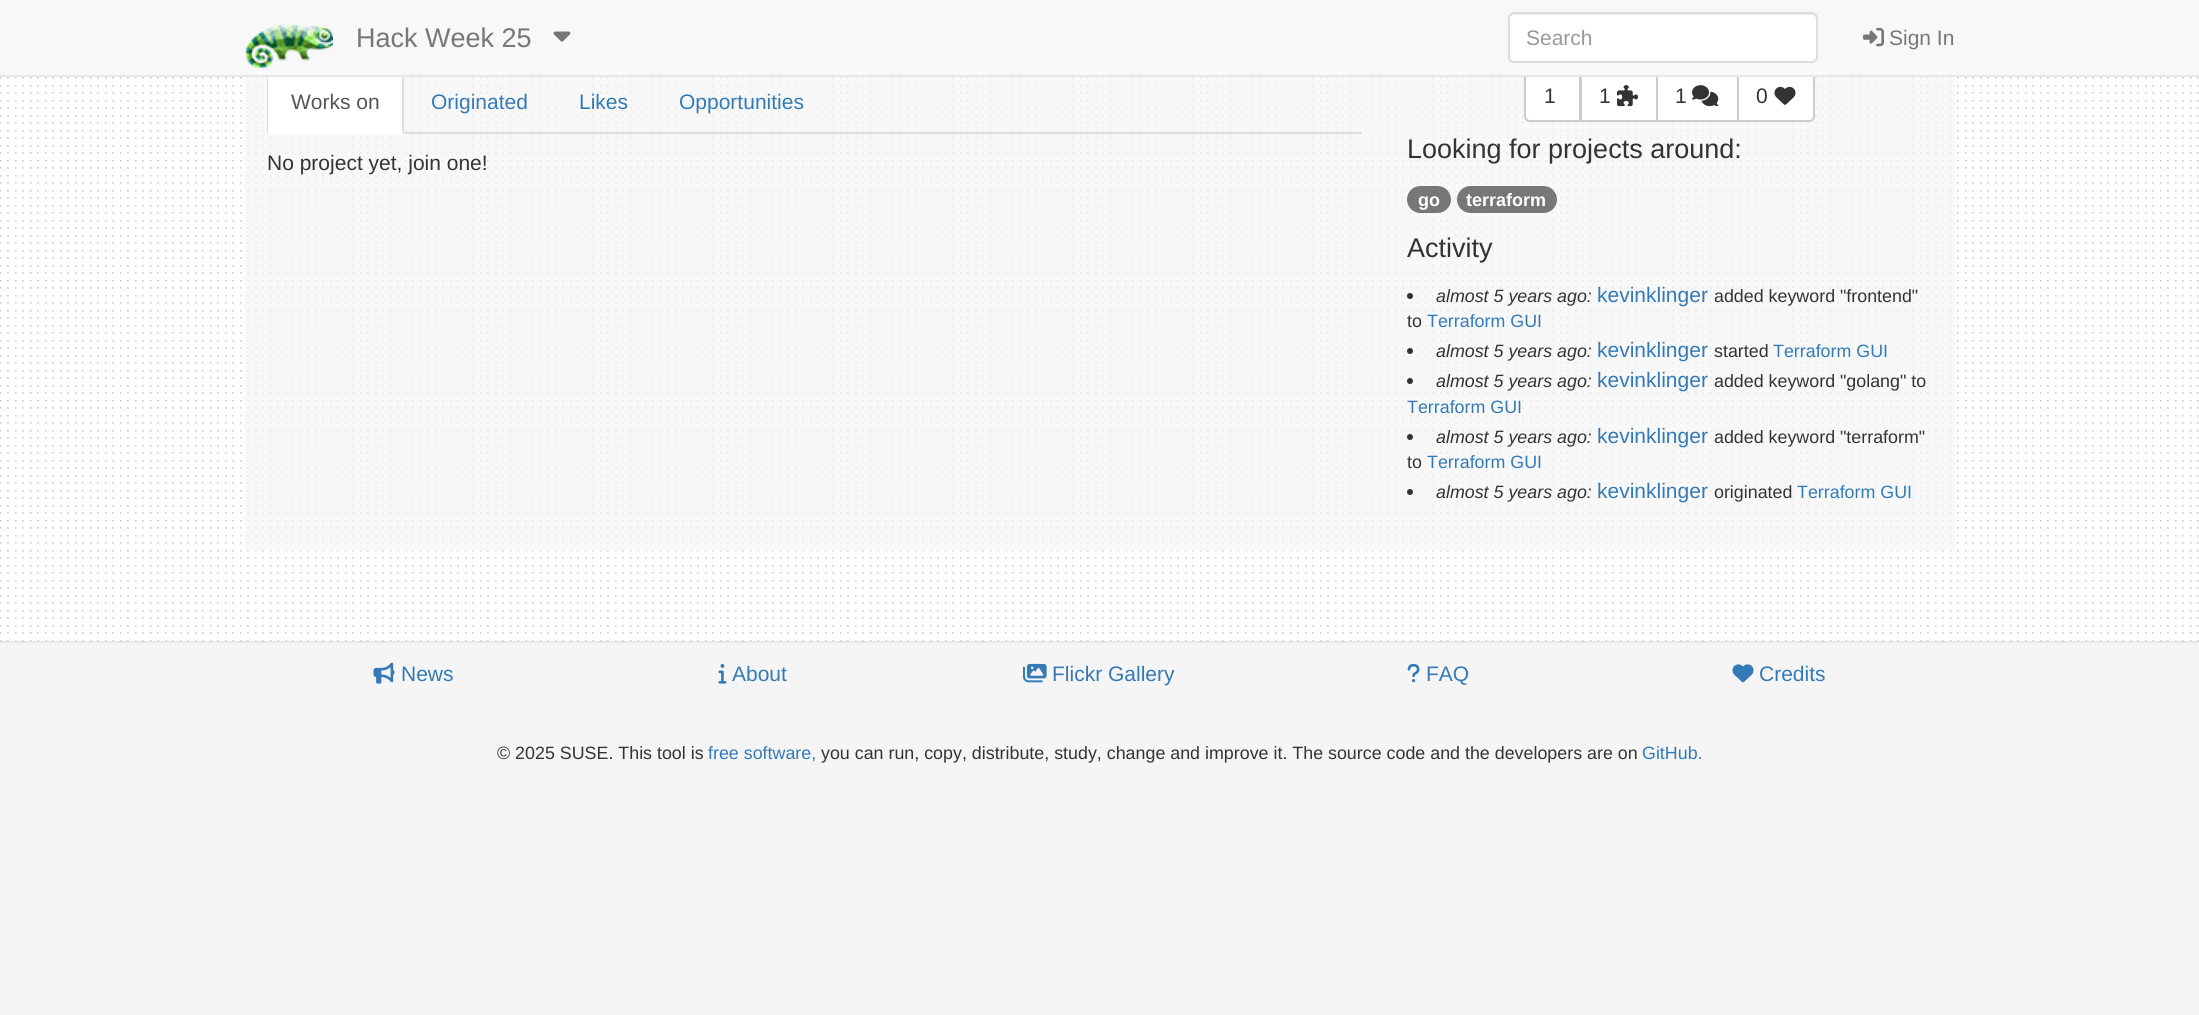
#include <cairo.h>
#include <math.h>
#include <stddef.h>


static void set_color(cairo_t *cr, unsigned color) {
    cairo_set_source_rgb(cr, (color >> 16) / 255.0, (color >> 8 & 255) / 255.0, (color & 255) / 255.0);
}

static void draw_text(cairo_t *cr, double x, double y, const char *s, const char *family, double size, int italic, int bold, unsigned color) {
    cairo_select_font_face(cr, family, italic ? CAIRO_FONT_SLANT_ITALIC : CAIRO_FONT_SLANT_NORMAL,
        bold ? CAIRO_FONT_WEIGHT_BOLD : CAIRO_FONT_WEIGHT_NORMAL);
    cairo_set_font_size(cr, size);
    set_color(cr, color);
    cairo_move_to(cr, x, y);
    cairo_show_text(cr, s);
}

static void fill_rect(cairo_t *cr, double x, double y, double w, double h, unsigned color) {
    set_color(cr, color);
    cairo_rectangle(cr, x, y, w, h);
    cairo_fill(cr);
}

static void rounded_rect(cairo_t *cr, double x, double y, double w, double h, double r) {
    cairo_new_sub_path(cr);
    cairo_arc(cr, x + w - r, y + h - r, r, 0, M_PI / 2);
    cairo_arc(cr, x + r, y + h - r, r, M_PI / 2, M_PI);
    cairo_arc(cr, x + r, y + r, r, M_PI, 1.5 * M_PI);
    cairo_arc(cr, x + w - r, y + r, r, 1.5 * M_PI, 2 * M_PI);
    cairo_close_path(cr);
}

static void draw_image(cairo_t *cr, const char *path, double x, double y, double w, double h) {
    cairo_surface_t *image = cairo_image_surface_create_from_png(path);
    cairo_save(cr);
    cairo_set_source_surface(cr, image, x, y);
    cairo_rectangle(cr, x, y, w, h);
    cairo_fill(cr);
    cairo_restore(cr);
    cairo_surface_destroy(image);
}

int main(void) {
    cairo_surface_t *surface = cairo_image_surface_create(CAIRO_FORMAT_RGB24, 2199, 1015);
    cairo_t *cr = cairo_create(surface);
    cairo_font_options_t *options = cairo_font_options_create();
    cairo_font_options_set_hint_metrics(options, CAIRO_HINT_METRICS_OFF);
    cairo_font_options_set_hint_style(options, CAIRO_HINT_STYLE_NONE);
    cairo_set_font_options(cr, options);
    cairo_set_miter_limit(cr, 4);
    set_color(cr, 0xFFFFFF);
    cairo_paint(cr);
    draw_image(cr, "assets/img1.png", 0, 77, 2199, 564);
    cairo_set_source_rgba(cr, 0.965, 0.965, 0.965, 0.7);
    cairo_rectangle(cr, 245, 77, 1710, 474);
    cairo_fill(cr);
    fill_rect(cr, 267, 77, 137, 57, 0xFFFFFF);
    set_color(cr, 0xDDDDDD);
    cairo_new_path(cr);
    cairo_move_to(cr, 402, 72);
    cairo_line_to(cr, 404, 74);
    cairo_line_to(cr, 404, 134);
    cairo_line_to(cr, 402, 132);
    cairo_line_to(cr, 402, 76);
    cairo_line_to(cr, 401, 73);
    cairo_close_path(cr);
    cairo_fill(cr);
    cairo_new_path(cr);
    cairo_move_to(cr, 267, 134);
    cairo_line_to(cr, 268, 132);
    cairo_line_to(cr, 268, 76);
    cairo_line_to(cr, 270, 73);
    cairo_line_to(cr, 269, 72);
    cairo_curve_to(cr, 268, 73, 267, 75, 267, 76);
    cairo_close_path(cr);
    cairo_fill(cr);
    set_color(cr, 0xFFFFFF);
    cairo_new_path(cr);
    cairo_move_to(cr, 1530, 72);
    cairo_line_to(cr, 1580, 72);
    cairo_line_to(cr, 1580, 121);
    cairo_line_to(cr, 1530, 121);
    cairo_curve_to(cr, 1527, 121, 1525, 119, 1525, 116);
    cairo_line_to(cr, 1525, 77);
    cairo_curve_to(cr, 1525, 74, 1527, 72, 1530, 72);
    cairo_close_path(cr);
    cairo_fill_preserve(cr);
    set_color(cr, 0xCCCCCC);
    cairo_stroke(cr);
    fill_rect(cr, 1582, 77, 74, 43, 0xFFFFFF);
    cairo_rectangle(cr, 1581, 72, 76, 49);
    set_color(cr, 0xCCCCCC);
    cairo_stroke(cr);
    fill_rect(cr, 1658, 77, 79, 43, 0xFFFFFF);
    cairo_rectangle(cr, 1657, 72, 81, 49);
    set_color(cr, 0xCCCCCC);
    cairo_stroke(cr);
    set_color(cr, 0xFFFFFF);
    cairo_new_path(cr);
    cairo_move_to(cr, 1738, 72);
    cairo_line_to(cr, 1809, 72);
    cairo_curve_to(cr, 1812, 72, 1814, 74, 1814, 77);
    cairo_line_to(cr, 1814, 116);
    cairo_curve_to(cr, 1814, 119, 1812, 121, 1809, 121);
    cairo_line_to(cr, 1738, 121);
    cairo_close_path(cr);
    cairo_fill_preserve(cr);
    set_color(cr, 0xCCCCCC);
    cairo_stroke(cr);
    fill_rect(cr, 0, 0, 2199, 75, 0xF8F8F8);
    fill_rect(cr, 0, 75, 2199, 2, 0xE7E7E7);
    draw_image(cr, "assets/img2.png", 245, 24, 88, 44);
    draw_text(cr, 356, 47, "Hack Week 25", "Liberation Sans", 27, 0, 0, 0x777777);
    draw_image(cr, "assets/img3.png", 553, 31, 18, 11);
    set_color(cr, 0xFFFFFF);
    rounded_rect(cr, 1508, 12, 310, 51, 6);
    cairo_fill(cr);
    set_color(cr, 0xECECEC);
    cairo_new_path(cr);
    cairo_move_to(cr, 1514, 15);
    cairo_line_to(cr, 1812, 15);
    cairo_curve_to(cr, 1814, 15, 1816, 17, 1816, 20);
    cairo_line_to(cr, 1816, 58);
    cairo_line_to(cr, 1815, 61);
    cairo_curve_to(cr, 1816, 60, 1817, 58, 1817, 57);
    cairo_line_to(cr, 1817, 19);
    cairo_curve_to(cr, 1817, 16, 1815, 14, 1812, 14);
    cairo_line_to(cr, 1514, 14);
    cairo_curve_to(cr, 1511, 14, 1509, 16, 1509, 19);
    cairo_line_to(cr, 1509, 20);
    cairo_curve_to(cr, 1509, 17, 1511, 15, 1514, 15);
    cairo_close_path(cr);
    cairo_fill(cr);
    rounded_rect(cr, 1509, 13, 308, 49, 5);
    set_color(cr, 0xDDDDDD);
    cairo_stroke(cr);
    draw_text(cr, 1526, 45, "Search", "Liberation Sans", 21, 0, 0, 0x999999);
    draw_image(cr, "assets/img4.png", 1863, 27, 21, 20);
    draw_text(cr, 1889, 45, "Sign In", "Liberation Sans", 21, 0, 0, 0x777777);
    fill_rect(cr, 404, 132, 958, 2, 0xDDDDDD);
    draw_text(cr, 291, 109, "Works on", "Liberation Sans", 21, 0, 0, 0x555555);
    draw_text(cr, 431, 109, "Originated", "Liberation Sans", 21, 0, 0, 0x337AB7);
    draw_text(cr, 579, 109, "Likes", "Liberation Sans", 21, 0, 0, 0x337AB7);
    draw_text(cr, 679, 109, "Opportunities", "Liberation Sans", 21, 0, 0, 0x337AB7);
    draw_text(cr, 267, 170, "No project yet, join one!", "Liberation Sans", 21, 0, 0, 0x333333);
    draw_text(cr, 1544, 103, "1", "Liberation Sans", 21, 0, 0, 0x333333);
    draw_text(cr, 1599, 103, "1", "Liberation Sans", 21, 0, 0, 0x333333);
    draw_image(cr, "assets/img5.png", 1617, 85, 21, 22);
    draw_text(cr, 1675, 103, "1", "Liberation Sans", 21, 0, 0, 0x333333);
    draw_image(cr, "assets/img6.png", 1692, 85, 27, 22);
    draw_text(cr, 1756, 103, "0", "Liberation Sans", 21, 0, 0, 0x333333);
    draw_image(cr, "assets/img7.png", 1774, 86, 22, 19);
    draw_text(cr, 1407, 158, "Looking for projects around:", "Liberation Sans", 27, 0, 0, 0x333333);
    set_color(cr, 0x777777);
    rounded_rect(cr, 1407, 186, 44, 27, 13.5);
    cairo_fill(cr);
    draw_text(cr, 1418, 206, "go", "Liberation Sans", 18, 0, 1, 0xFFFFFF);
    set_color(cr, 0x777777);
    rounded_rect(cr, 1457, 186, 100, 27, 13.5);
    cairo_fill(cr);
    draw_text(cr, 1466, 206, "terraform", "Liberation Sans", 18, 0, 1, 0xFFFFFF);
    draw_text(cr, 1407, 257, "Activity", "Liberation Sans", 27, 0, 0, 0x333333);
    cairo_new_path(cr);
    cairo_arc(cr, 1410, 296, 3, 0, 2 * M_PI);
    cairo_fill(cr);
    draw_text(cr, 1436, 302, "almost 5 years ago:", "Liberation Sans", 17.85, 1, 0, 0x333333);
    draw_text(cr, 1597, 302, "kevinklinger", "Liberation Sans", 21, 0, 0, 0x337AB7);
    draw_text(cr, 1714, 302, "added keyword \"frontend\"", "Liberation Sans", 17.85, 0, 0, 0x333333);
    draw_text(cr, 1407, 327, "to", "Liberation Sans", 17.85, 0, 0, 0x333333);
    draw_text(cr, 1427, 327, "Terraform GUI", "Liberation Sans", 17.85, 0, 0, 0x337AB7);
    set_color(cr, 0x333333);
    cairo_new_path(cr);
    cairo_arc(cr, 1410, 351, 3, 0, 2 * M_PI);
    cairo_fill(cr);
    draw_text(cr, 1436, 357, "almost 5 years ago:", "Liberation Sans", 17.85, 1, 0, 0x333333);
    draw_text(cr, 1597, 357, "kevinklinger", "Liberation Sans", 21, 0, 0, 0x337AB7);
    draw_text(cr, 1714, 357, "started", "Liberation Sans", 17.85, 0, 0, 0x333333);
    draw_text(cr, 1773, 357, "Terraform GUI", "Liberation Sans", 17.85, 0, 0, 0x337AB7);
    set_color(cr, 0x333333);
    cairo_new_path(cr);
    cairo_arc(cr, 1410, 381, 3, 0, 2 * M_PI);
    cairo_fill(cr);
    draw_text(cr, 1436, 387, "almost 5 years ago:", "Liberation Sans", 17.85, 1, 0, 0x333333);
    draw_text(cr, 1597, 387, "kevinklinger", "Liberation Sans", 21, 0, 0, 0x337AB7);
    draw_text(cr, 1714, 387, "added keyword \"golang\" to", "Liberation Sans", 17.85, 0, 0, 0x333333);
    draw_text(cr, 1407, 413, "Terraform GUI", "Liberation Sans", 17.85, 0, 0, 0x337AB7);
    set_color(cr, 0x333333);
    cairo_new_path(cr);
    cairo_arc(cr, 1410, 437, 3, 0, 2 * M_PI);
    cairo_fill(cr);
    draw_text(cr, 1436, 443, "almost 5 years ago:", "Liberation Sans", 17.85, 1, 0, 0x333333);
    draw_text(cr, 1597, 443, "kevinklinger", "Liberation Sans", 21, 0, 0, 0x337AB7);
    draw_text(cr, 1714, 443, "added keyword \"terraform\"", "Liberation Sans", 17.85, 0, 0, 0x333333);
    draw_text(cr, 1407, 468, "to", "Liberation Sans", 17.85, 0, 0, 0x333333);
    draw_text(cr, 1427, 468, "Terraform GUI", "Liberation Sans", 17.85, 0, 0, 0x337AB7);
    set_color(cr, 0x333333);
    cairo_new_path(cr);
    cairo_arc(cr, 1410, 492, 3, 0, 2 * M_PI);
    cairo_fill(cr);
    draw_text(cr, 1436, 498, "almost 5 years ago:", "Liberation Sans", 17.85, 1, 0, 0x333333);
    draw_text(cr, 1597, 498, "kevinklinger", "Liberation Sans", 21, 0, 0, 0x337AB7);
    draw_text(cr, 1714, 498, "originated", "Liberation Sans", 17.85, 0, 0, 0x333333);
    draw_text(cr, 1797, 498, "Terraform GUI", "Liberation Sans", 17.85, 0, 0, 0x337AB7);
    fill_rect(cr, 0, 643, 2199, 372, 0xF5F5F5);
    fill_rect(cr, 0, 641, 2199, 2, 0xE5E5E5);
    draw_image(cr, "assets/img8.png", 373, 662, 22, 22);
    draw_text(cr, 401, 681, "News", "Liberation Sans", 21, 0, 0, 0x337AB7);
    draw_image(cr, "assets/img9.png", 718, 664, 9, 20);
    draw_text(cr, 732, 681, "About", "Liberation Sans", 21, 0, 0, 0x337AB7);
    draw_image(cr, "assets/img10.png", 1023, 663, 24, 20);
    draw_text(cr, 1052, 681, "Flickr Gallery", "Liberation Sans", 21, 0, 0, 0x337AB7);
    draw_image(cr, "assets/img11.png", 1407, 663, 13, 20);
    draw_text(cr, 1426, 681, "FAQ", "Liberation Sans", 21, 0, 0, 0x337AB7);
    draw_image(cr, "assets/img12.png", 1732, 664, 22, 19);
    draw_text(cr, 1759, 681, "Credits", "Liberation Sans", 21, 0, 0, 0x337AB7);
    draw_text(cr, 497, 759, "© 2025 SUSE. This tool is", "Liberation Sans", 17.85, 0, 0, 0x333333);
    draw_text(cr, 708, 759, "free software,", "Liberation Sans", 17.85, 0, 0, 0x337AB7);
    draw_text(cr, 821, 759, "you can run, copy, distribute, study, change and improve it. The source code and the developers are on", "Liberation Sans", 17.85, 0, 0, 0x333333);
    draw_text(cr, 1642, 759, "GitHub.", "Liberation Sans", 17.85, 0, 0, 0x337AB7);
    cairo_surface_write_to_png(surface, "output.png");
    cairo_font_options_destroy(options);
    cairo_destroy(cr);
    cairo_surface_destroy(surface);
    return 0;
}
